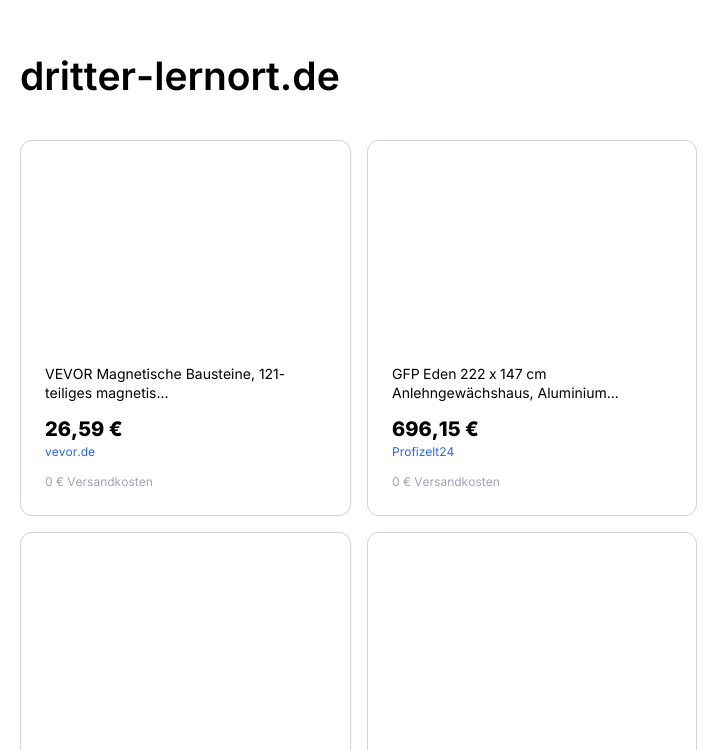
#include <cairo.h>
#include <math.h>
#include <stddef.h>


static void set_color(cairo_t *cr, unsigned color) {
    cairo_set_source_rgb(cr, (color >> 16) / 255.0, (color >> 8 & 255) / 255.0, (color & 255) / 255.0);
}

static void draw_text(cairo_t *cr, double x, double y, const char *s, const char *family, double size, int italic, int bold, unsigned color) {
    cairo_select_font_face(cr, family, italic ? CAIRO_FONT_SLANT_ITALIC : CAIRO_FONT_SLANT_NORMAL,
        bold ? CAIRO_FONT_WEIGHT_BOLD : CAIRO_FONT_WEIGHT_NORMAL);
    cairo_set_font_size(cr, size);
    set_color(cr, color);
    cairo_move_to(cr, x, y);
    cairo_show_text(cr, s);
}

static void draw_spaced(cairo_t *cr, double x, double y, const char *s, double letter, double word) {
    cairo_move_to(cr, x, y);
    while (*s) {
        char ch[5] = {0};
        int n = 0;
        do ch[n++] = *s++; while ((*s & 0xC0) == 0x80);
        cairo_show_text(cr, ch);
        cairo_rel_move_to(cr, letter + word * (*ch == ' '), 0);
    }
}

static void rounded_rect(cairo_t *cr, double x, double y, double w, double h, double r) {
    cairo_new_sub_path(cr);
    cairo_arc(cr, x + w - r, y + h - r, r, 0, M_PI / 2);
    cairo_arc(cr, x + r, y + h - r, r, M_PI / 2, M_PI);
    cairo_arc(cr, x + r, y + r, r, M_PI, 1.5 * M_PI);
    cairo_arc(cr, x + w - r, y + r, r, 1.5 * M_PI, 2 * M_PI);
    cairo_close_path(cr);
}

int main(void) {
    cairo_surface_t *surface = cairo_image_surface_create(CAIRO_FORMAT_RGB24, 717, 750);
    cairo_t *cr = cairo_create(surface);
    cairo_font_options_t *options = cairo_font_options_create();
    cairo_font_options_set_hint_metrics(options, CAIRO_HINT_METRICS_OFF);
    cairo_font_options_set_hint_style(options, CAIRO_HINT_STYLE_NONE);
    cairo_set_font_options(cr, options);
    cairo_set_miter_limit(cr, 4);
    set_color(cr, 0xFFFFFF);
    cairo_paint(cr);
    draw_text(cr, 20, 90, "dritter-lernort.de", "Inter SemiBold", 39, 0, 0, 0x000000);
    rounded_rect(cr, 20.5, 140.5, 330, 375, 11.5);
    set_color(cr, 0xD1D5DB);
    cairo_set_line_width(cr, 1);
    cairo_stroke(cr);
    draw_text(cr, 45, 379, "VEVOR Magnetische Bausteine, 121-", "Inter", 14, 0, 0, 0x000000);
    draw_text(cr, 45, 398, "teiliges magnetis...", "Inter", 14, 0, 0, 0x000000);
    draw_text(cr, 45, 436, "26,59 €", "Inter ExtraBold", 20, 0, 0, 0x000000);
    draw_text(cr, 45, 456, "vevor.de", "Inter", 12, 0, 0, 0x2563EB);
    draw_text(cr, 45, 486, "0 € Versandkosten", "Inter", 12, 0, 0, 0x9CA3AF);
    rounded_rect(cr, 367.5, 140.5, 329, 375, 11.5);
    set_color(cr, 0xD1D5DB);
    cairo_stroke(cr);
    cairo_set_font_size(cr, 14);
    set_color(cr, 0x000000);
    draw_spaced(cr, 392, 379, "GFP Eden 222 x 147 cm", 0, -0.5);
    draw_text(cr, 392, 398, "Anlehngewächshaus, Aluminium...", "Inter", 14, 0, 0, 0x000000);
    draw_text(cr, 392, 436, "696,15 €", "Inter ExtraBold", 20, 0, 0, 0x000000);
    draw_text(cr, 392, 456, "Profizelt24", "Inter", 12, 0, 0, 0x2563EB);
    draw_text(cr, 392, 486, "0 € Versandkosten", "Inter", 12, 0, 0, 0x9CA3AF);
    rounded_rect(cr, 20.5, 532.5, 330, 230, 11.5);
    set_color(cr, 0xD1D5DB);
    cairo_stroke(cr);
    rounded_rect(cr, 367.5, 532.5, 329, 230, 11.5);
    cairo_stroke(cr);
    cairo_surface_write_to_png(surface, "output.png");
    cairo_font_options_destroy(options);
    cairo_destroy(cr);
    cairo_surface_destroy(surface);
    return 0;
}
